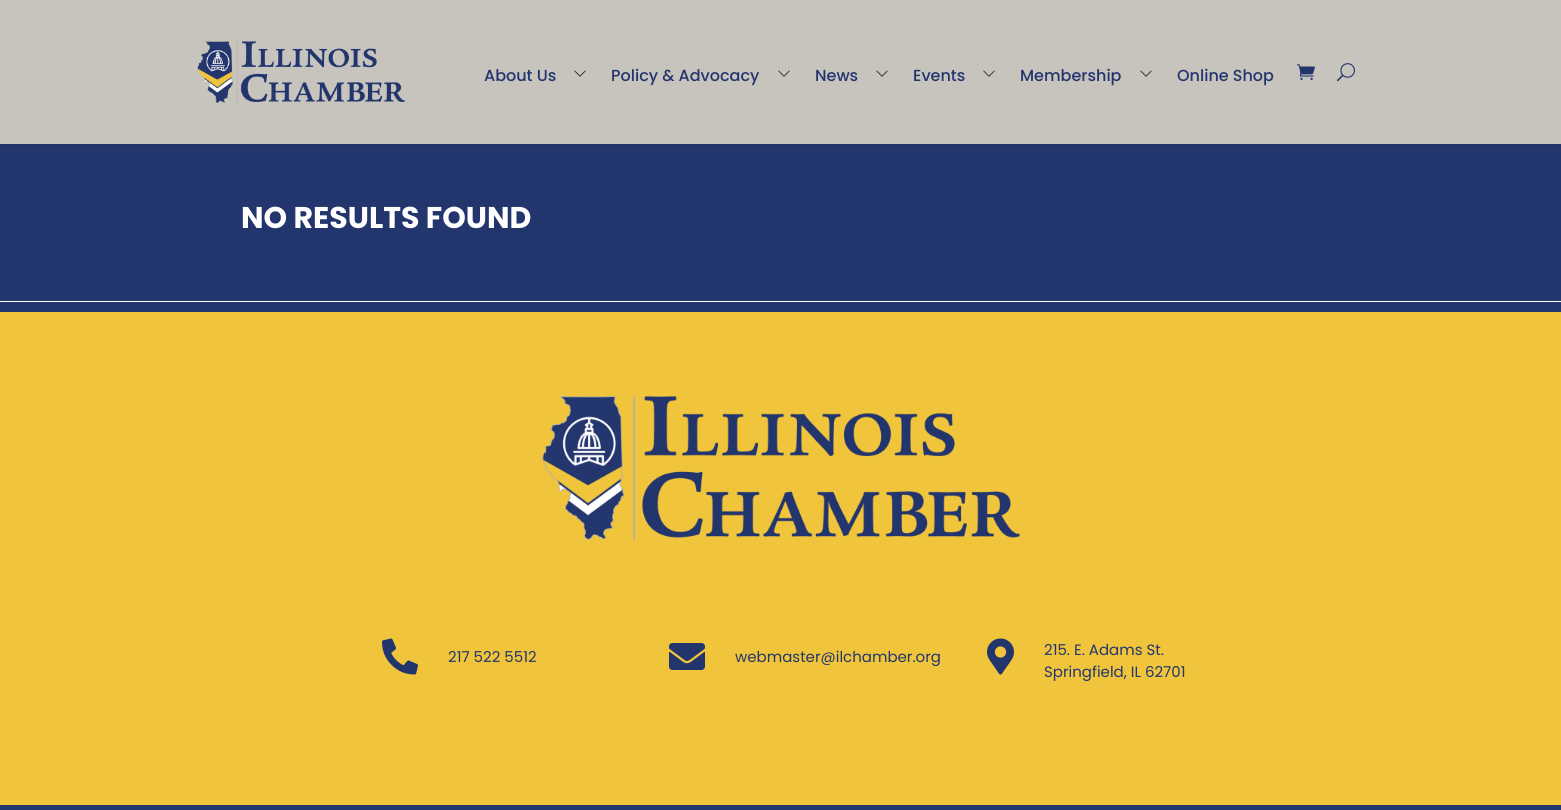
#include <cairo.h>
#include <math.h>
#include <stddef.h>


static void set_color(cairo_t *cr, unsigned color) {
    cairo_set_source_rgb(cr, (color >> 16) / 255.0, (color >> 8 & 255) / 255.0, (color & 255) / 255.0);
}

static void draw_text(cairo_t *cr, double x, double y, const char *s, const char *family, double size, int italic, int bold, unsigned color) {
    cairo_select_font_face(cr, family, italic ? CAIRO_FONT_SLANT_ITALIC : CAIRO_FONT_SLANT_NORMAL,
        bold ? CAIRO_FONT_WEIGHT_BOLD : CAIRO_FONT_WEIGHT_NORMAL);
    cairo_set_font_size(cr, size);
    set_color(cr, color);
    cairo_move_to(cr, x, y);
    cairo_show_text(cr, s);
}

static void fill_rect(cairo_t *cr, double x, double y, double w, double h, unsigned color) {
    set_color(cr, color);
    cairo_rectangle(cr, x, y, w, h);
    cairo_fill(cr);
}

static void draw_image(cairo_t *cr, const char *path, double x, double y, double w, double h) {
    cairo_surface_t *image = cairo_image_surface_create_from_png(path);
    cairo_save(cr);
    cairo_set_source_surface(cr, image, x, y);
    cairo_rectangle(cr, x, y, w, h);
    cairo_fill(cr);
    cairo_restore(cr);
    cairo_surface_destroy(image);
}

int main(void) {
    cairo_surface_t *surface = cairo_image_surface_create(CAIRO_FORMAT_RGB24, 1561, 810);
    cairo_t *cr = cairo_create(surface);
    cairo_font_options_t *options = cairo_font_options_create();
    cairo_font_options_set_hint_metrics(options, CAIRO_HINT_METRICS_OFF);
    cairo_font_options_set_hint_style(options, CAIRO_HINT_STYLE_NONE);
    cairo_set_font_options(cr, options);
    cairo_set_miter_limit(cr, 4);
    set_color(cr, 0xFFFFFF);
    cairo_paint(cr);
    fill_rect(cr, 0, 144, 1561, 1, 0x203062);
    fill_rect(cr, 0, 0, 1561, 144, 0xC7C4BE);
    draw_image(cr, "assets/img1.png", 197, 41, 209, 62);
    draw_text(cr, 484, 81, "About Us", "Poppins Medium", 16, 0, 0, 0x23356D);
    draw_image(cr, "assets/img2.png", 574, 70, 12, 7);
    draw_text(cr, 611, 81, "Policy & Advocacy", "Poppins Medium", 16, 0, 0, 0x23356D);
    draw_image(cr, "assets/img2.png", 778, 70, 12, 7);
    draw_text(cr, 815, 81, "News", "Poppins Medium", 16, 0, 0, 0x23356D);
    draw_image(cr, "assets/img2.png", 876, 70, 12, 7);
    draw_text(cr, 913, 81, "Events", "Poppins Medium", 16, 0, 0, 0x23356D);
    draw_image(cr, "assets/img2.png", 983, 70, 12, 7);
    draw_text(cr, 1020, 81, "Membership", "Poppins Medium", 16, 0, 0, 0x23356D);
    draw_image(cr, "assets/img2.png", 1140, 70, 12, 7);
    draw_text(cr, 1177, 81, "Online Shop", "Poppins Medium", 16, 0, 0, 0x23356D);
    draw_image(cr, "assets/img3.png", 1297, 64, 18, 16);
    draw_image(cr, "assets/img4.png", 1337, 63, 18, 19);
    fill_rect(cr, 0, 145, 1561, 156, 0x23356D);
    draw_text(cr, 241, 228, "NO RESULTS FOUND", "Poppins", 30, 0, 1, 0xFFFFFF);
    fill_rect(cr, 0, 312, 1561, 493, 0xF0C43B);
    fill_rect(cr, 0, 302, 1561, 10, 0x23356D);
    draw_image(cr, "assets/img5.png", 542, 396, 478, 144);
    draw_image(cr, "assets/img6.png", 382, 638, 36, 37);
    draw_text(cr, 448, 662, "217 522 5512", "Poppins", 15, 0, 0, 0x23356D);
    draw_image(cr, "assets/img7.png", 669, 643, 36, 27);
    draw_text(cr, 735, 662, "webmaster@ilchamber.org", "Poppins", 15, 0, 0, 0x23356D);
    draw_image(cr, "assets/img8.png", 987, 638, 27, 37);
    draw_text(cr, 1044, 655, "215. E. Adams St.", "Poppins", 15, 0, 0, 0x23356D);
    draw_text(cr, 1044, 677, "Springfield, IL 62701", "Poppins", 15, 0, 0, 0x23356D);
    fill_rect(cr, 0, 805, 1561, 5, 0x23356D);
    cairo_surface_write_to_png(surface, "output.png");
    cairo_font_options_destroy(options);
    cairo_destroy(cr);
    cairo_surface_destroy(surface);
    return 0;
}
